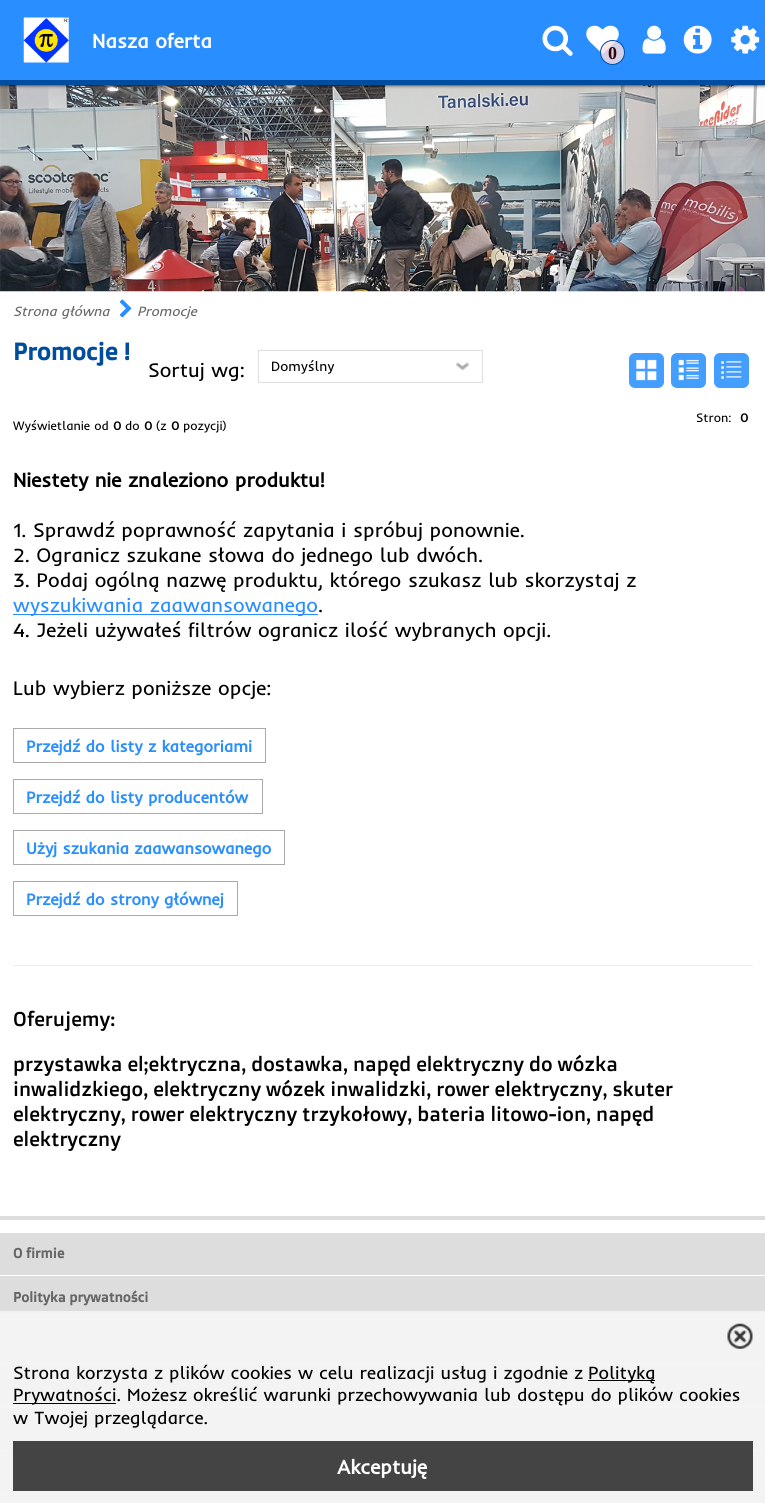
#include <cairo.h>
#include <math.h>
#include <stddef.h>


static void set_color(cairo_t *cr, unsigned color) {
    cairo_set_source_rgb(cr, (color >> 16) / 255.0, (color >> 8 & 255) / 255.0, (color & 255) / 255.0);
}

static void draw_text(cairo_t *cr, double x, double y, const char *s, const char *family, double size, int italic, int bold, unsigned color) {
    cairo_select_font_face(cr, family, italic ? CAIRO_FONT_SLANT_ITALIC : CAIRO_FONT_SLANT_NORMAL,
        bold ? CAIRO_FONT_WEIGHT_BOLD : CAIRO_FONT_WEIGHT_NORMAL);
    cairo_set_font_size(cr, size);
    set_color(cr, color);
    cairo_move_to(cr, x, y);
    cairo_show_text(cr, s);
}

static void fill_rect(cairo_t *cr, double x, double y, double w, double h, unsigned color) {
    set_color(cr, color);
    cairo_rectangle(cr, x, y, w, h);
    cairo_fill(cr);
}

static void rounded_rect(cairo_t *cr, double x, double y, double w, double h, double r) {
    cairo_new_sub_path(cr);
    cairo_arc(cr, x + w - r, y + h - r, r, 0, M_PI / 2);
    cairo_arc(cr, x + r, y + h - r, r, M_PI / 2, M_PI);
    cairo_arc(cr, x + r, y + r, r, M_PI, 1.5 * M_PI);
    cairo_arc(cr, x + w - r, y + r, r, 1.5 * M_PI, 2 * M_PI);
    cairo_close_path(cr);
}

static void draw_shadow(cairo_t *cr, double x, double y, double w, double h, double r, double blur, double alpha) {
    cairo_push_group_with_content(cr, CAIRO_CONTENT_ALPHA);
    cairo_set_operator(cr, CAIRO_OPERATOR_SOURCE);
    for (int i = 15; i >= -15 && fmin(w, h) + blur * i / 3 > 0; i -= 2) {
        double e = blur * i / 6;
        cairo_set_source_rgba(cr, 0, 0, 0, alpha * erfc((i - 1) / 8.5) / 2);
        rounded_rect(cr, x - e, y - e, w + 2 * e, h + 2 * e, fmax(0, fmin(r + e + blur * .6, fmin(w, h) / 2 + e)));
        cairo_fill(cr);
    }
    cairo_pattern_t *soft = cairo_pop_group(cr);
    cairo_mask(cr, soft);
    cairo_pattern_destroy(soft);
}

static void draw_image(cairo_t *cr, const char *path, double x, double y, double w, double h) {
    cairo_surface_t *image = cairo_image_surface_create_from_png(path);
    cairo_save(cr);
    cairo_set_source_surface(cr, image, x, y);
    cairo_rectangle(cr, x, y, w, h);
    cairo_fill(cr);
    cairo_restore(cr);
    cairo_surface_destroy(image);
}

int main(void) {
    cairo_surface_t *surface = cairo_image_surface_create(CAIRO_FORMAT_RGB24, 765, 1503);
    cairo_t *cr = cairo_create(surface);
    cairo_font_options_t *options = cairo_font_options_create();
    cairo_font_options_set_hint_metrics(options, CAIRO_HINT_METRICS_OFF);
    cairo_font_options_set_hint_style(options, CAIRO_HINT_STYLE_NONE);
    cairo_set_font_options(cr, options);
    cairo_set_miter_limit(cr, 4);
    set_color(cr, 0xFFFFFF);
    cairo_paint(cr);
    draw_image(cr, "assets/img7.png", 0, 85, 765, 207);
    set_color(cr, 0x000000);
    draw_shadow(cr, 0, 0, 765, 85, 0, 2, 1);
    fill_rect(cr, 0, 0, 765, 80, 0x298EFF);
    fill_rect(cr, 0, 80, 765, 5, 0x004D9F);
    draw_image(cr, "assets/img1.png", 23, 17, 46, 46);
    draw_text(cr, 92, 48, "Nasza oferta", "Inder", 20, 0, 1, 0xFFFFFF);
    draw_image(cr, "assets/img2.png", 542, 25, 31, 31);
    draw_image(cr, "assets/img3.png", 586, 25, 33, 29);
    cairo_set_source_rgba(cr, 1, 0.89, 0.89, 0.79);
    cairo_arc(cr, 612.5, 52.5, 12, 0, 2 * M_PI);
    cairo_fill_preserve(cr);
    set_color(cr, 0x004D9F);
    cairo_set_line_width(cr, 1);
    cairo_stroke(cr);
    draw_text(cr, 608, 59, "0", "Liberation Serif", 18, 0, 1, 0x340000);
    draw_image(cr, "assets/img4.png", 642, 25, 24, 29);
    draw_image(cr, "assets/img5.png", 683, 25, 29, 29);
    draw_image(cr, "assets/img6.png", 731, 25, 29, 29);
    draw_text(cr, 13, 316, "Strona główna", "Inder", 13.75, 1, 0, 0x666666);
    draw_image(cr, "assets/img8.png", 119, 299, 13, 19);
    draw_text(cr, 137, 316, "Promocje", "Inder", 13.75, 1, 0, 0x666666);
    draw_text(cr, 13, 360, "Promocje !", "Doppio One", 24, 0, 1, 0x004D9F);
    draw_text(cr, 148, 377, "Sortuj wg:", "Inder", 20, 0, 0, 0x000000);
    draw_image(cr, "assets/img9.png", 456, 362, 13, 9);
    cairo_rectangle(cr, 258.5, 350.5, 224, 32);
    set_color(cr, 0xDEDEDE);
    cairo_stroke(cr);
    draw_text(cr, 271, 371, "Domyślny", "Inder", 13.75, 0, 0, 0x000000);
    set_color(cr, 0x439EFF);
    rounded_rect(cr, 629, 353, 35, 35, 6);
    cairo_fill(cr);
    draw_image(cr, "assets/img10.png", 636, 359, 21, 22);
    rounded_rect(cr, 671, 353, 35, 35, 6);
    cairo_fill(cr);
    draw_image(cr, "assets/img11.png", 678, 359, 21, 22);
    rounded_rect(cr, 714, 353, 35, 35, 6);
    cairo_fill(cr);
    draw_image(cr, "assets/img12.png", 721, 361, 21, 18);
    draw_text(cr, 696, 422, "Stron:", "Inder", 12.5, 0, 0, 0x000000);
    draw_text(cr, 740, 422, "0", "Inder", 12.5, 0, 1, 0x000000);
    draw_text(cr, 13, 430, "Wyświetlanie od", "Inder", 12.5, 0, 0, 0x000000);
    draw_text(cr, 113, 430, "0", "Inder", 12.5, 0, 1, 0x000000);
    draw_text(cr, 125, 430, "do", "Inder", 12.5, 0, 0, 0x000000);
    draw_text(cr, 144, 430, "0", "Inder", 12.5, 0, 1, 0x000000);
    draw_text(cr, 156, 430, "(z", "Inder", 12.5, 0, 0, 0x000000);
    draw_text(cr, 171, 430, "0", "Inder", 12.5, 0, 1, 0x000000);
    draw_text(cr, 183, 430, "pozycji)", "Inder", 12.5, 0, 0, 0x000000);
    draw_text(cr, 13, 487, "Niestety nie znaleziono produktu!", "Inder", 20, 0, 1, 0x000000);
    draw_text(cr, 13, 537, "1. Sprawdź poprawność zapytania i spróbuj ponownie.", "Inder", 20, 0, 0, 0x000000);
    draw_text(cr, 13, 562, "2. Ogranicz szukane słowa do jednego lub dwóch.", "Inder", 20, 0, 0, 0x000000);
    draw_text(cr, 13, 587, "3. Podaj ogólną nazwę produktu, którego szukasz lub skorzystaj z", "Inder", 20, 0, 0, 0x000000);
    fill_rect(cr, 13, 614, 305, 1, 0x298EFF);
    draw_text(cr, 13, 612, "wyszukiwania zaawansowanego", "Inder", 20, 0, 0, 0x298EFF);
    draw_text(cr, 318, 612, ".", "Inder", 20, 0, 0, 0x000000);
    draw_text(cr, 13, 637, "4. Jeżeli używałeś filtrów ogranicz ilość wybranych opcji.", "Inder", 20, 0, 0, 0x000000);
    draw_text(cr, 13, 695, "Lub wybierz poniższe opcje:", "Inder", 20, 0, 0, 0x000000);
    cairo_rectangle(cr, 13.5, 728.5, 252, 34);
    set_color(cr, 0xAAAAAA);
    cairo_stroke(cr);
    draw_text(cr, 26, 752, "Przejdź do listy z kategoriami", "Inder", 16.25, 0, 1, 0x298EFF);
    cairo_rectangle(cr, 13.5, 779.5, 249, 34);
    set_color(cr, 0xAAAAAA);
    cairo_stroke(cr);
    draw_text(cr, 26, 803, "Przejdź do listy producentów", "Inder", 16.25, 0, 1, 0x298EFF);
    cairo_rectangle(cr, 13.5, 830.5, 271, 34);
    set_color(cr, 0xAAAAAA);
    cairo_stroke(cr);
    draw_text(cr, 26, 854, "Użyj szukania zaawansowanego", "Inder", 16.25, 0, 1, 0x298EFF);
    cairo_rectangle(cr, 13.5, 881.5, 224, 34);
    set_color(cr, 0xAAAAAA);
    cairo_stroke(cr);
    draw_text(cr, 26, 905, "Przejdź do strony głównej", "Inder", 16.25, 0, 1, 0x298EFF);
    fill_rect(cr, 13, 965, 740, 1, 0xEEEEEE);
    draw_text(cr, 13, 1026, "Oferujemy:", "Doppio One", 20, 0, 0, 0x000000);
    draw_text(cr, 13, 1071, "przystawka el;ektryczna, dostawka, napęd elektryczny do wózka", "Doppio One", 20, 0, 0, 0x000000);
    draw_text(cr, 13, 1096, "inwalidzkiego, elektryczny wózek inwalidzki, rower elektryczny, skuter", "Doppio One", 20, 0, 0, 0x000000);
    draw_text(cr, 13, 1121, "elektryczny, rower elektryczny trzykołowy, bateria litowo-ion, napęd", "Doppio One", 20, 0, 0, 0x000000);
    draw_text(cr, 13, 1146, "elektryczny", "Doppio One", 20, 0, 0, 0x000000);
    fill_rect(cr, 0, 1216, 765, 4, 0xDDDDDD);
    fill_rect(cr, 0, 1233, 765, 42, 0xDDDDDD);
    draw_text(cr, 13, 1258, "O firmie", "Doppio One", 13.75, 0, 1, 0x666666);
    fill_rect(cr, 0, 1276, 765, 43, 0xDDDDDD);
    draw_text(cr, 13, 1302, "Polityka prywatności", "Doppio One", 13.75, 0, 1, 0x666666);
    fill_rect(cr, 0, 1320, 765, 43, 0xDDDDDD);
    fill_rect(cr, 0, 1364, 765, 42, 0xDDDDDD);
    fill_rect(cr, 0, 1408, 765, 42, 0xDDDDDD);
    fill_rect(cr, 0, 1451, 765, 43, 0xDDDDDD);
    fill_rect(cr, 0, 1495, 765, 8, 0xDDDDDD);
    cairo_set_source_rgba(cr, 0.961, 0.961, 0.961, 0.95);
    cairo_rectangle(cr, 0, 1311, 765, 192);
    cairo_fill(cr);
    draw_image(cr, "assets/img13.png", 727, 1323, 26, 26);
    draw_text(cr, 13, 1379, "Strona korzysta z plików cookies w celu realizacji usług i zgodnie z", "Inder", 18, 0, 0, 0x000000);
    fill_rect(cr, 588, 1380, 67, 1, 0x000000);
    draw_text(cr, 588, 1379, "Polityką", "Inder", 18, 0, 0, 0x000000);
    fill_rect(cr, 13, 1403, 103, 1, 0x000000);
    draw_text(cr, 13, 1401, "Prywatności. Możesz określić warunki przechowywania lub dostępu do plików cookies", "Inder", 18, 0, 0, 0x000000);
    draw_text(cr, 13, 1424, "w Twojej przeglądarce.", "Inder", 18, 0, 0, 0x000000);
    fill_rect(cr, 13, 1441, 740, 50, 0x444444);
    draw_text(cr, 337, 1474, "Akceptuję", "Inder", 20, 0, 1, 0xFFFFFF);
    cairo_surface_write_to_png(surface, "output.png");
    cairo_font_options_destroy(options);
    cairo_destroy(cr);
    cairo_surface_destroy(surface);
    return 0;
}
